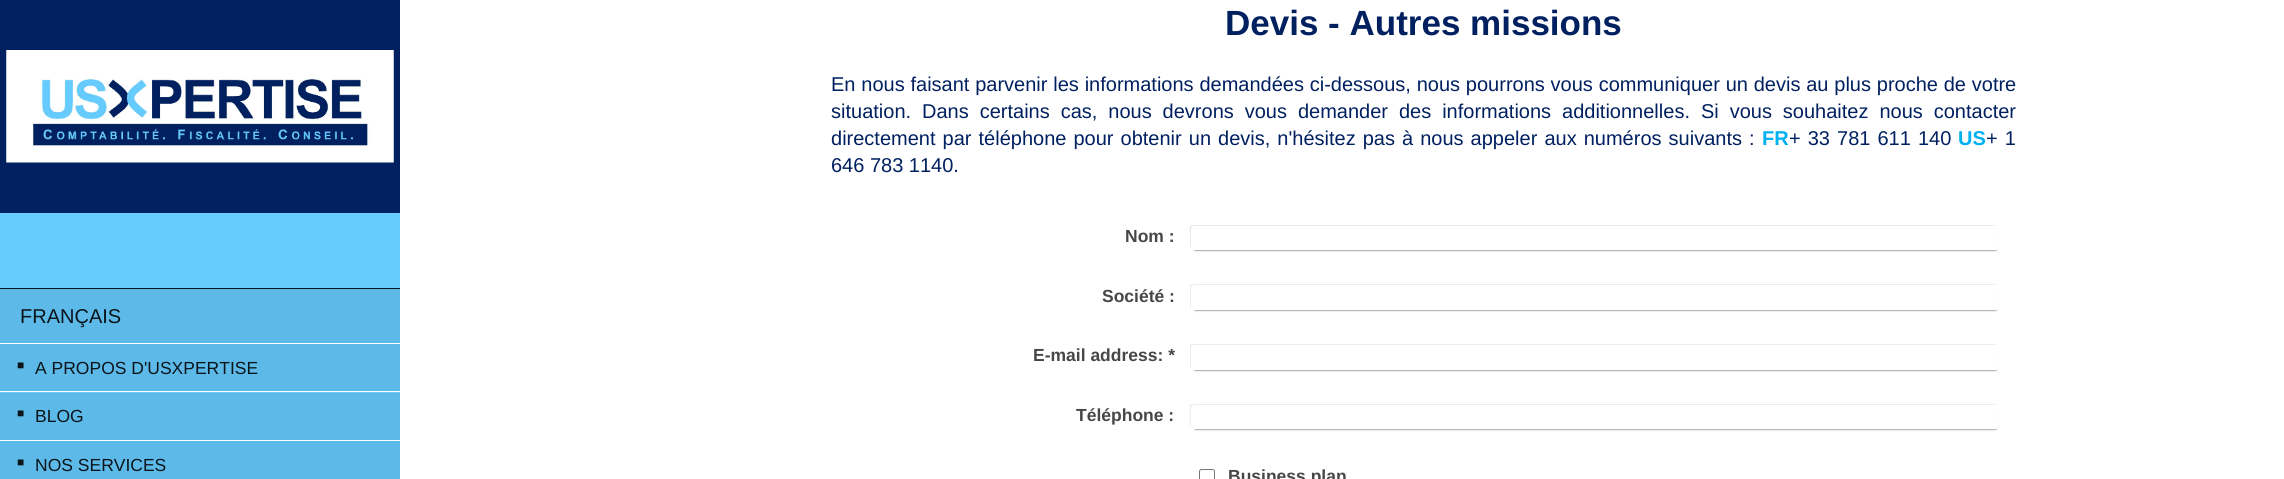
#include <cairo.h>
#include <math.h>
#include <stddef.h>


static void set_color(cairo_t *cr, unsigned color) {
    cairo_set_source_rgb(cr, (color >> 16) / 255.0, (color >> 8 & 255) / 255.0, (color & 255) / 255.0);
}

static void draw_text(cairo_t *cr, double x, double y, const char *s, const char *family, double size, int italic, int bold, unsigned color) {
    cairo_select_font_face(cr, family, italic ? CAIRO_FONT_SLANT_ITALIC : CAIRO_FONT_SLANT_NORMAL,
        bold ? CAIRO_FONT_WEIGHT_BOLD : CAIRO_FONT_WEIGHT_NORMAL);
    cairo_set_font_size(cr, size);
    set_color(cr, color);
    cairo_move_to(cr, x, y);
    cairo_show_text(cr, s);
}

static void draw_spaced(cairo_t *cr, double x, double y, const char *s, double letter, double word) {
    cairo_move_to(cr, x, y);
    while (*s) {
        char ch[5] = {0};
        int n = 0;
        do ch[n++] = *s++; while ((*s & 0xC0) == 0x80);
        cairo_show_text(cr, ch);
        cairo_rel_move_to(cr, letter + word * (*ch == ' '), 0);
    }
}

static void fill_rect(cairo_t *cr, double x, double y, double w, double h, unsigned color) {
    set_color(cr, color);
    cairo_rectangle(cr, x, y, w, h);
    cairo_fill(cr);
}

static void rounded_rect(cairo_t *cr, double x, double y, double w, double h, double r) {
    cairo_new_sub_path(cr);
    cairo_arc(cr, x + w - r, y + h - r, r, 0, M_PI / 2);
    cairo_arc(cr, x + r, y + h - r, r, M_PI / 2, M_PI);
    cairo_arc(cr, x + r, y + r, r, M_PI, 1.5 * M_PI);
    cairo_arc(cr, x + w - r, y + r, r, 1.5 * M_PI, 2 * M_PI);
    cairo_close_path(cr);
}

static void draw_shadow(cairo_t *cr, double x, double y, double w, double h, double r, double blur, double alpha) {
    cairo_push_group_with_content(cr, CAIRO_CONTENT_ALPHA);
    cairo_set_operator(cr, CAIRO_OPERATOR_SOURCE);
    for (int i = 15; i >= -15 && fmin(w, h) + blur * i / 3 > 0; i -= 2) {
        double e = blur * i / 6;
        cairo_set_source_rgba(cr, 0, 0, 0, alpha * erfc((i - 1) / 8.5) / 2);
        rounded_rect(cr, x - e, y - e, w + 2 * e, h + 2 * e, fmax(0, fmin(r + e + blur * .6, fmin(w, h) / 2 + e)));
        cairo_fill(cr);
    }
    cairo_pattern_t *soft = cairo_pop_group(cr);
    cairo_mask(cr, soft);
    cairo_pattern_destroy(soft);
}

static void draw_image(cairo_t *cr, const char *path, double x, double y, double w, double h) {
    cairo_surface_t *image = cairo_image_surface_create_from_png(path);
    cairo_save(cr);
    cairo_set_source_surface(cr, image, x, y);
    cairo_rectangle(cr, x, y, w, h);
    cairo_fill(cr);
    cairo_restore(cr);
    cairo_surface_destroy(image);
}

int main(void) {
    cairo_surface_t *surface = cairo_image_surface_create(CAIRO_FORMAT_RGB24, 2284, 479);
    cairo_t *cr = cairo_create(surface);
    cairo_font_options_t *options = cairo_font_options_create();
    cairo_font_options_set_hint_metrics(options, CAIRO_HINT_METRICS_OFF);
    cairo_font_options_set_hint_style(options, CAIRO_HINT_STYLE_NONE);
    cairo_set_font_options(cr, options);
    cairo_set_miter_limit(cr, 4);
    set_color(cr, 0xFFFFFF);
    cairo_paint(cr);
    fill_rect(cr, 0, 213, 400, 180, 0x66CCFF);
    fill_rect(cr, 0, 0, 400, 213, 0x002060);
    draw_image(cr, "assets/img1.png", 6, 50, 388, 113);
    fill_rect(cr, 0, 288, 400, 1, 0x0A141A);
    fill_rect(cr, 0, 343, 400, 1, 0xFFFFFF);
    fill_rect(cr, 0, 289, 400, 54, 0x5DBAE8);
    draw_text(cr, 20, 323, "FRANÇAIS", "Liberation Sans", 20, 0, 0, 0x0A141A);
    fill_rect(cr, 0, 391, 400, 1, 0xFFFFFF);
    fill_rect(cr, 0, 344, 400, 47, 0x5DBAE8);
    draw_text(cr, 17, 369, "■", "Liberation Sans", 12, 0, 0, 0x0A141A);
    draw_text(cr, 35, 374, "A PROPOS D'USXPERTISE", "Liberation Sans", 17.5, 0, 0, 0x0A141A);
    fill_rect(cr, 0, 393, 400, 47, 0x5DBAE8);
    draw_text(cr, 17, 417, "■", "Liberation Sans", 12, 0, 0, 0x0A141A);
    draw_text(cr, 35, 422, "BLOG", "Liberation Sans", 17.5, 0, 0, 0x0A141A);
    fill_rect(cr, 0, 441, 400, 38, 0x5DBAE8);
    draw_text(cr, 17, 466, "■", "Liberation Sans", 12, 0, 0, 0x0A141A);
    draw_text(cr, 35, 471, "NOS SERVICES", "Liberation Sans", 17.5, 0, 0, 0x0A141A);
    draw_text(cr, 1225, 35, "Devis - Autres missions", "Liberation Sans", 35, 0, 1, 0x002060);
    cairo_select_font_face(cr, "Liberation Sans", CAIRO_FONT_SLANT_NORMAL, CAIRO_FONT_WEIGHT_NORMAL);
    cairo_set_font_size(cr, 20);
    draw_spaced(cr, 831, 91, "En nous faisant parvenir les informations demandées ci-dessous, nous pourrons vous communiquer un devis au plus proche de votre", 0, 0.25);
    draw_spaced(cr, 831, 118, "situation. Dans certains cas, nous devrons vous demander des informations additionnelles. Si vous souhaitez nous contacter", 0, 5.4);
    draw_spaced(cr, 831, 145, "directement par téléphone pour obtenir un devis, n'hésitez pas", 0, 1.5);
    draw_spaced(cr, 1402, 145, "à nous appeler aux numéros suivants :", 0, 1.5);
    draw_text(cr, 1762, 145, "FR", "Liberation Sans", 20, 0, 1, 0x00B0F0);
    cairo_select_font_face(cr, "Liberation Sans", CAIRO_FONT_SLANT_NORMAL, CAIRO_FONT_WEIGHT_NORMAL);
    set_color(cr, 0x002060);
    draw_spaced(cr, 1789, 145, "+ 33 781 611 140", 0, 1.5);
    draw_text(cr, 1958, 145, "US", "Liberation Sans", 20, 0, 1, 0x00B0F0);
    cairo_select_font_face(cr, "Liberation Sans", CAIRO_FONT_SLANT_NORMAL, CAIRO_FONT_WEIGHT_NORMAL);
    set_color(cr, 0x002060);
    draw_spaced(cr, 1986, 145, "+ 1", 0, 1.5);
    draw_text(cr, 831, 172, "646 783 1140.", "Liberation Sans", 20, 0, 0, 0x002060);
    set_color(cr, 0xEBEBEB);
    cairo_new_path(cr);
    cairo_move_to(cr, 1192, 225);
    cairo_curve_to(cr, 1188, 225, 1190, 235, 1190, 237);
    cairo_curve_to(cr, 1190, 239, 1189, 248, 1192, 249);
    cairo_line_to(cr, 1191, 238);
    cairo_curve_to(cr, 1191, 236, 1190, 226, 1194, 226);
    cairo_line_to(cr, 1996, 226);
    cairo_curve_to(cr, 1995, 226, 1994, 225, 1994, 225);
    cairo_close_path(cr);
    cairo_fill(cr);
    set_color(cr, 0x000000);
    draw_shadow(cr, 1195, 231, 801, 19, 0, 1, 0.8);
    set_color(cr, 0xFFFFFF);
    rounded_rect(cr, 1191, 226, 807, 24, 2.5);
    cairo_fill(cr);
    draw_text(cr, 1125, 242, "Nom :", "Liberation Sans", 17.5, 0, 1, 0x474747);
    set_color(cr, 0xEBEBEB);
    cairo_new_path(cr);
    cairo_move_to(cr, 1192, 284);
    cairo_curve_to(cr, 1191, 284, 1190, 285, 1190, 286);
    cairo_line_to(cr, 1190, 306);
    cairo_curve_to(cr, 1190, 308, 1191, 309, 1192, 309);
    cairo_line_to(cr, 1191, 291);
    cairo_curve_to(cr, 1191, 289, 1191, 285, 1194, 285);
    cairo_line_to(cr, 1996, 285);
    cairo_line_to(cr, 1994, 284);
    cairo_close_path(cr);
    cairo_fill(cr);
    set_color(cr, 0x000000);
    draw_shadow(cr, 1195, 290, 801, 20, 0, 1, 0.8);
    set_color(cr, 0xFFFFFF);
    rounded_rect(cr, 1191, 285, 807, 25, 2.5);
    cairo_fill(cr);
    draw_text(cr, 1102, 302, "Société :", "Liberation Sans", 17.5, 0, 1, 0x474747);
    set_color(cr, 0xEBEBEB);
    cairo_new_path(cr);
    cairo_move_to(cr, 1192, 344);
    cairo_curve_to(cr, 1191, 344, 1190, 345, 1190, 346);
    cairo_line_to(cr, 1190, 366);
    cairo_curve_to(cr, 1190, 368, 1191, 369, 1192, 369);
    cairo_line_to(cr, 1191, 351);
    cairo_curve_to(cr, 1191, 349, 1191, 345, 1194, 345);
    cairo_line_to(cr, 1996, 345);
    cairo_line_to(cr, 1994, 344);
    cairo_close_path(cr);
    cairo_fill(cr);
    set_color(cr, 0x000000);
    draw_shadow(cr, 1195, 350, 801, 20, 0, 1, 0.8);
    set_color(cr, 0xFFFFFF);
    rounded_rect(cr, 1191, 345, 807, 25, 2.5);
    cairo_fill(cr);
    draw_text(cr, 1033, 361, "E-mail address: *", "Liberation Sans", 17.5, 0, 1, 0x474747);
    set_color(cr, 0xEBEBEB);
    cairo_new_path(cr);
    cairo_move_to(cr, 1192, 404);
    cairo_curve_to(cr, 1188, 404, 1190, 414, 1190, 416);
    cairo_curve_to(cr, 1190, 418, 1188, 427, 1192, 428);
    cairo_curve_to(cr, 1190, 426, 1191, 414, 1191, 411);
    cairo_curve_to(cr, 1191, 409, 1191, 405, 1194, 405);
    cairo_line_to(cr, 1996, 405);
    cairo_line_to(cr, 1994, 404);
    cairo_close_path(cr);
    cairo_fill(cr);
    set_color(cr, 0x000000);
    draw_shadow(cr, 1195, 410, 801, 19, 0, 1, 0.8);
    set_color(cr, 0xFFFFFF);
    rounded_rect(cr, 1191, 405, 807, 24, 2.5);
    cairo_fill(cr);
    draw_text(cr, 1076, 421, "Téléphone :", "Liberation Sans", 17.5, 0, 1, 0x474747);
    rounded_rect(cr, 1199.5, 469.5, 15, 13, 2);
    set_color(cr, 0x767676);
    cairo_set_line_width(cr, 1);
    cairo_stroke(cr);
    draw_text(cr, 1228, 482, "Business plan", "Liberation Sans", 17.5, 0, 1, 0x474747);
    cairo_surface_write_to_png(surface, "output.png");
    cairo_font_options_destroy(options);
    cairo_destroy(cr);
    cairo_surface_destroy(surface);
    return 0;
}
